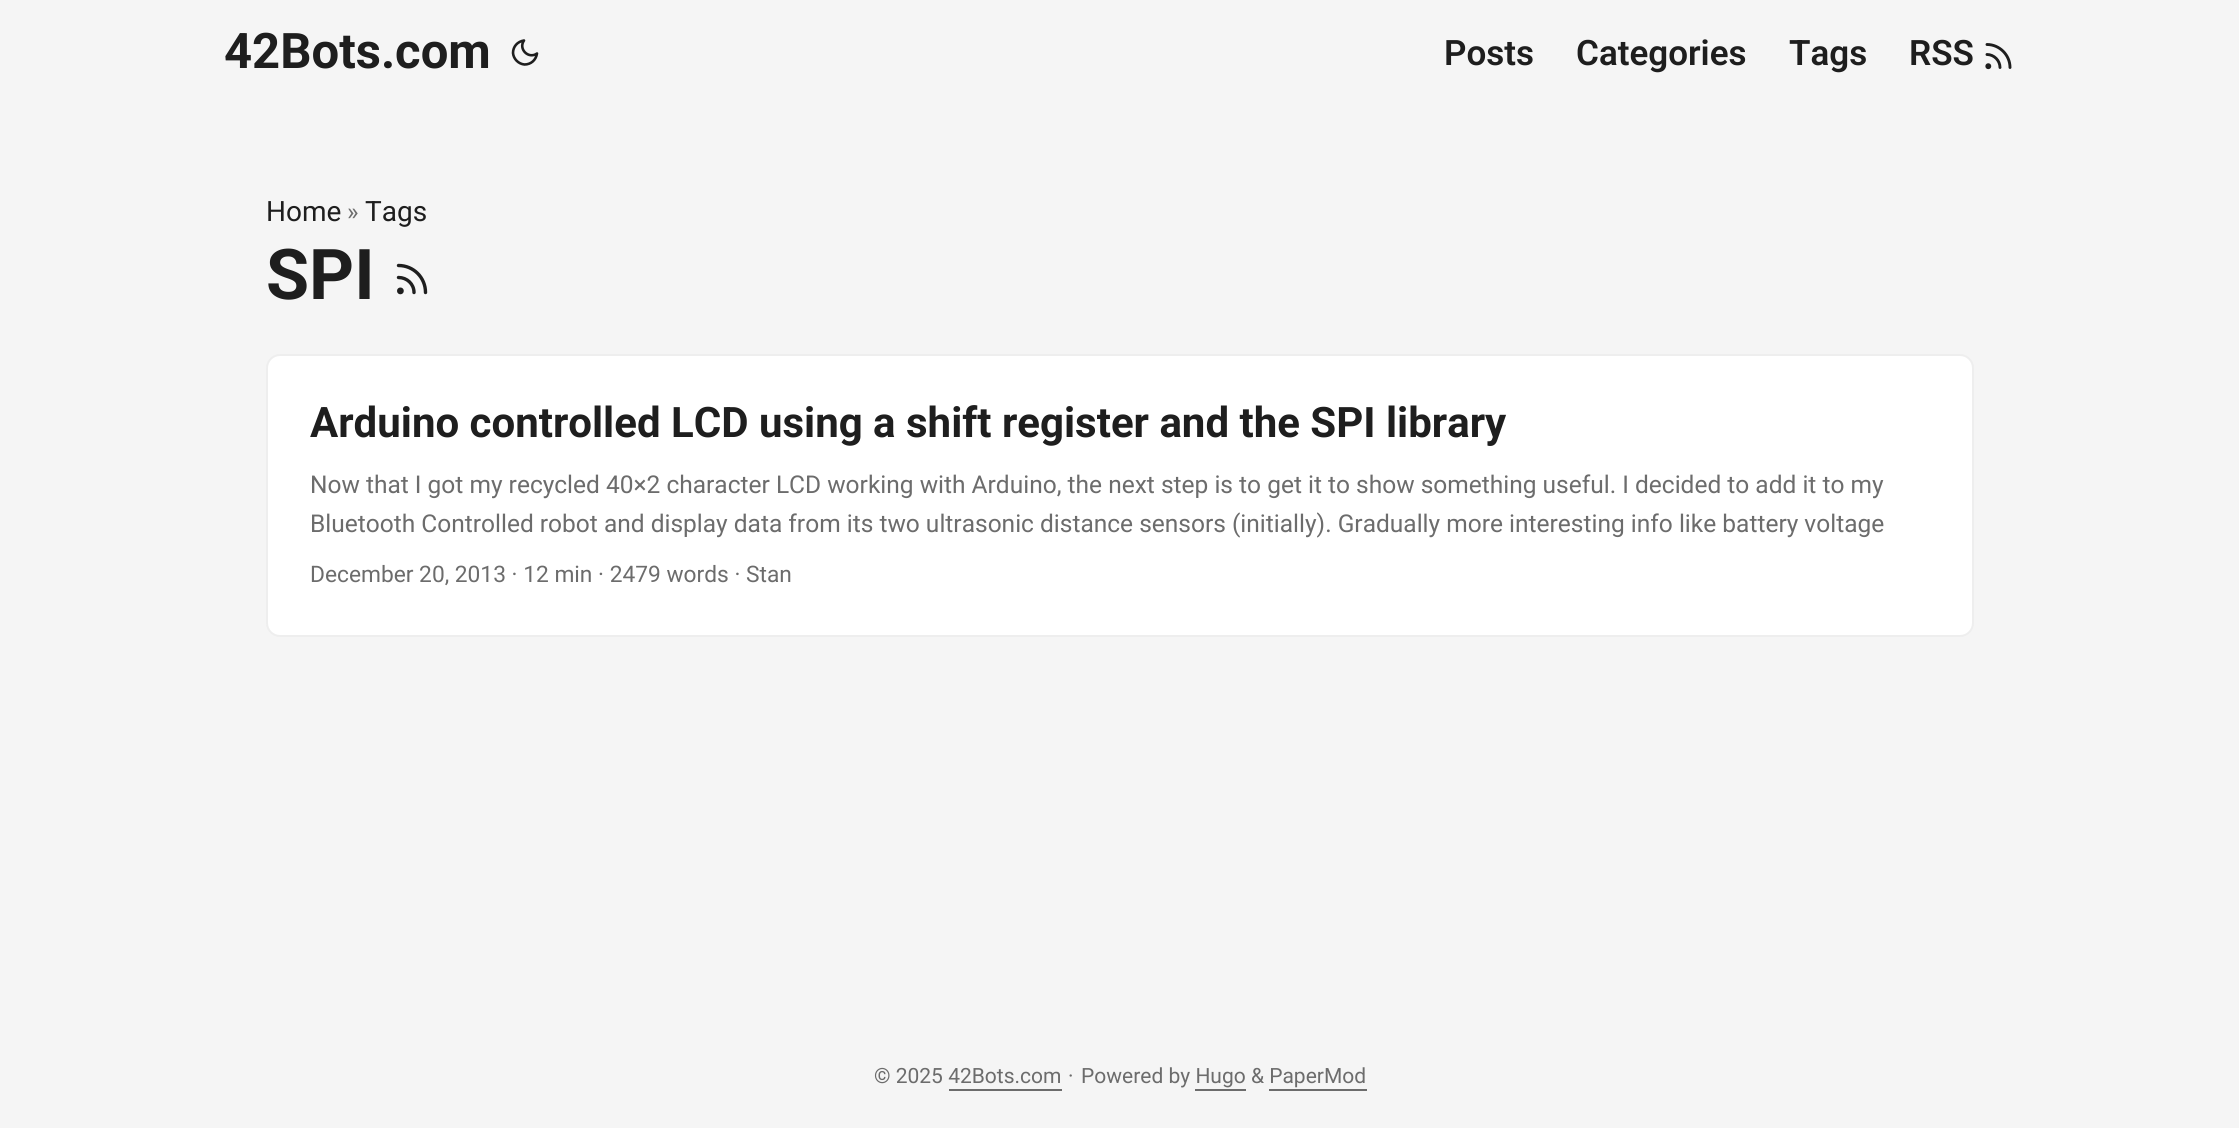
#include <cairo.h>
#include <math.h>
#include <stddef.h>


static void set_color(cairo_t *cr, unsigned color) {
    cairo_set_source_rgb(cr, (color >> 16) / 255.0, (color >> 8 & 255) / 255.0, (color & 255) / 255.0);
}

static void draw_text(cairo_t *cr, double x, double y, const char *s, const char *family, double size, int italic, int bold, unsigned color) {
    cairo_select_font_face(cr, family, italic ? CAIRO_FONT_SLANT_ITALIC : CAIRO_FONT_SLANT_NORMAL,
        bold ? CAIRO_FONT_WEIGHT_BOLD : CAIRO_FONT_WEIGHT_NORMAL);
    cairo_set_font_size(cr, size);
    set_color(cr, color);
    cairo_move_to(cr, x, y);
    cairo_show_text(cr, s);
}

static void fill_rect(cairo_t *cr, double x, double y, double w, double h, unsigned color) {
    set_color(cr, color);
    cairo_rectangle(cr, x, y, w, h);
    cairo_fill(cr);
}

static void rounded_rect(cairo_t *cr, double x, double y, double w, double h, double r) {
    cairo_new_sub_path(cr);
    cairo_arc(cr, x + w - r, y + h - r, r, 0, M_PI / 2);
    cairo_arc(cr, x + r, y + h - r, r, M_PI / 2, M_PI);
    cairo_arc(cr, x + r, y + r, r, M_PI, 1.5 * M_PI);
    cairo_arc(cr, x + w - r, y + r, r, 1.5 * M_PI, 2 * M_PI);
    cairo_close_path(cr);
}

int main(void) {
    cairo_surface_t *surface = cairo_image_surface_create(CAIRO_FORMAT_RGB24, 2239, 1128);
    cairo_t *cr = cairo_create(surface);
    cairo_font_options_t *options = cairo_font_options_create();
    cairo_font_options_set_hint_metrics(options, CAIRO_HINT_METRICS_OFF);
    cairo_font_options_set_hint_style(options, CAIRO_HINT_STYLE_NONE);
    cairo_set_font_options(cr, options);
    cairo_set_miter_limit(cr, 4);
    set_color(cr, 0xF5F5F5);
    cairo_paint(cr);
    draw_text(cr, 224, 68, "42Bots.com", "Roboto", 49, 0, 1, 0x1E1E1E);
    cairo_new_path(cr);
    cairo_move_to(cr, 537, 53.5);
    cairo_curve_to(cr, 536, 60, 531, 64.5, 524.5, 64.5);
    cairo_curve_to(cr, 518.5, 64, 513.5, 59, 513, 53);
    cairo_curve_to(cr, 513, 46.5, 517.5, 41.5, 524, 40.5);
    cairo_curve_to(cr, 518, 49, 528.5, 59.5, 537, 53.5);
    cairo_close_path(cr);
    cairo_set_line_width(cr, 2.6);
    cairo_set_line_cap(cr, CAIRO_LINE_CAP_ROUND);
    cairo_set_line_join(cr, CAIRO_LINE_JOIN_ROUND);
    cairo_stroke(cr);
    draw_text(cr, 1444, 65, "Posts", "Roboto SemiBold", 35, 0, 0, 0x1E1E1E);
    draw_text(cr, 1576, 65, "Categories", "Roboto SemiBold", 35, 0, 0, 0x1E1E1E);
    draw_text(cr, 1789, 65, "Tags", "Roboto SemiBold", 35, 0, 0, 0x1E1E1E);
    draw_text(cr, 1909, 65, "RSS", "Roboto SemiBold", 35, 0, 0, 0x1E1E1E);
    cairo_new_path(cr);
    cairo_move_to(cr, 1987, 54.5);
    cairo_curve_to(cr, 1994, 54.5, 2000, 60.5, 2000, 67.5);
    cairo_move_to(cr, 1987, 44.5);
    cairo_curve_to(cr, 1999.5, 44.5, 2010, 55, 2010, 67.5);
    cairo_set_line_width(cr, 2.9);
    cairo_stroke(cr);
    cairo_arc(cr, 1988.3, 66.2, 1.5, 0, 2 * M_PI);
    cairo_set_line_cap(cr, CAIRO_LINE_CAP_BUTT);
    cairo_set_line_join(cr, CAIRO_LINE_JOIN_MITER);
    cairo_stroke(cr);
    draw_text(cr, 266, 221, "Home", "Roboto", 28, 0, 0, 0x1E1E1E);
    draw_text(cr, 347, 220, "»", "Roboto", 24.5, 0, 0, 0x6C6C6C);
    draw_text(cr, 365, 221, "Tags", "Roboto", 28, 0, 0, 0x1E1E1E);
    draw_text(cr, 266, 299, "SPI", "Roboto", 70, 0, 1, 0x1E1E1E);
    cairo_new_path(cr);
    cairo_move_to(cr, 398.5, 277.5);
    cairo_curve_to(cr, 407, 277.5, 414, 284, 414, 292.5);
    cairo_move_to(cr, 398.5, 265.5);
    cairo_curve_to(cr, 413.5, 265.5, 425.5, 277.5, 425.5, 292.5);
    cairo_set_line_width(cr, 3.4);
    cairo_set_line_cap(cr, CAIRO_LINE_CAP_ROUND);
    cairo_set_line_join(cr, CAIRO_LINE_JOIN_ROUND);
    cairo_stroke(cr);
    cairo_arc(cr, 400.4, 290.9, 1.7, 0, 2 * M_PI);
    cairo_set_line_cap(cr, CAIRO_LINE_CAP_BUTT);
    cairo_set_line_join(cr, CAIRO_LINE_JOIN_MITER);
    cairo_stroke(cr);
    set_color(cr, 0xFFFFFF);
    rounded_rect(cr, 267, 355, 1706, 281, 13);
    cairo_fill_preserve(cr);
    set_color(cr, 0xEEEEEE);
    cairo_set_line_width(cr, 2);
    cairo_stroke(cr);
    draw_text(cr, 310, 437, "Arduino controlled LCD using a shift register and the SPI library", "Roboto", 42, 0, 1, 0x1E1E1E);
    draw_text(cr, 310, 493, "Now that I got my recycled 40×2 character LCD working with Arduino, the next step is to get it to show something useful. I decided to add it to my", "Roboto", 24.5, 0, 0, 0x6C6C6C);
    draw_text(cr, 310, 532, "Bluetooth Controlled robot and display data from its two ultrasonic distance sensors (initially). Gradually more interesting info like battery voltage", "Roboto", 24.5, 0, 0, 0x6C6C6C);
    draw_text(cr, 310, 582, "December 20, 2013 · 12 min · 2479 words · Stan", "Roboto", 22.75, 0, 0, 0x6C6C6C);
    draw_text(cr, 874, 1083, "© 2025 42Bots.com", "Roboto", 21, 0, 0, 0x6C6C6C);
    fill_rect(cr, 949, 1089, 113, 2, 0x6C6C6C);
    draw_text(cr, 1068, 1083, "·", "Roboto", 21, 0, 0, 0x6C6C6C);
    draw_text(cr, 1081, 1083, "Powered by Hugo & PaperMod", "Roboto", 21, 0, 0, 0x6C6C6C);
    fill_rect(cr, 1195, 1089, 51, 2, 0x6C6C6C);
    fill_rect(cr, 1269, 1089, 98, 2, 0x6C6C6C);
    cairo_surface_write_to_png(surface, "output.png");
    cairo_font_options_destroy(options);
    cairo_destroy(cr);
    cairo_surface_destroy(surface);
    return 0;
}
